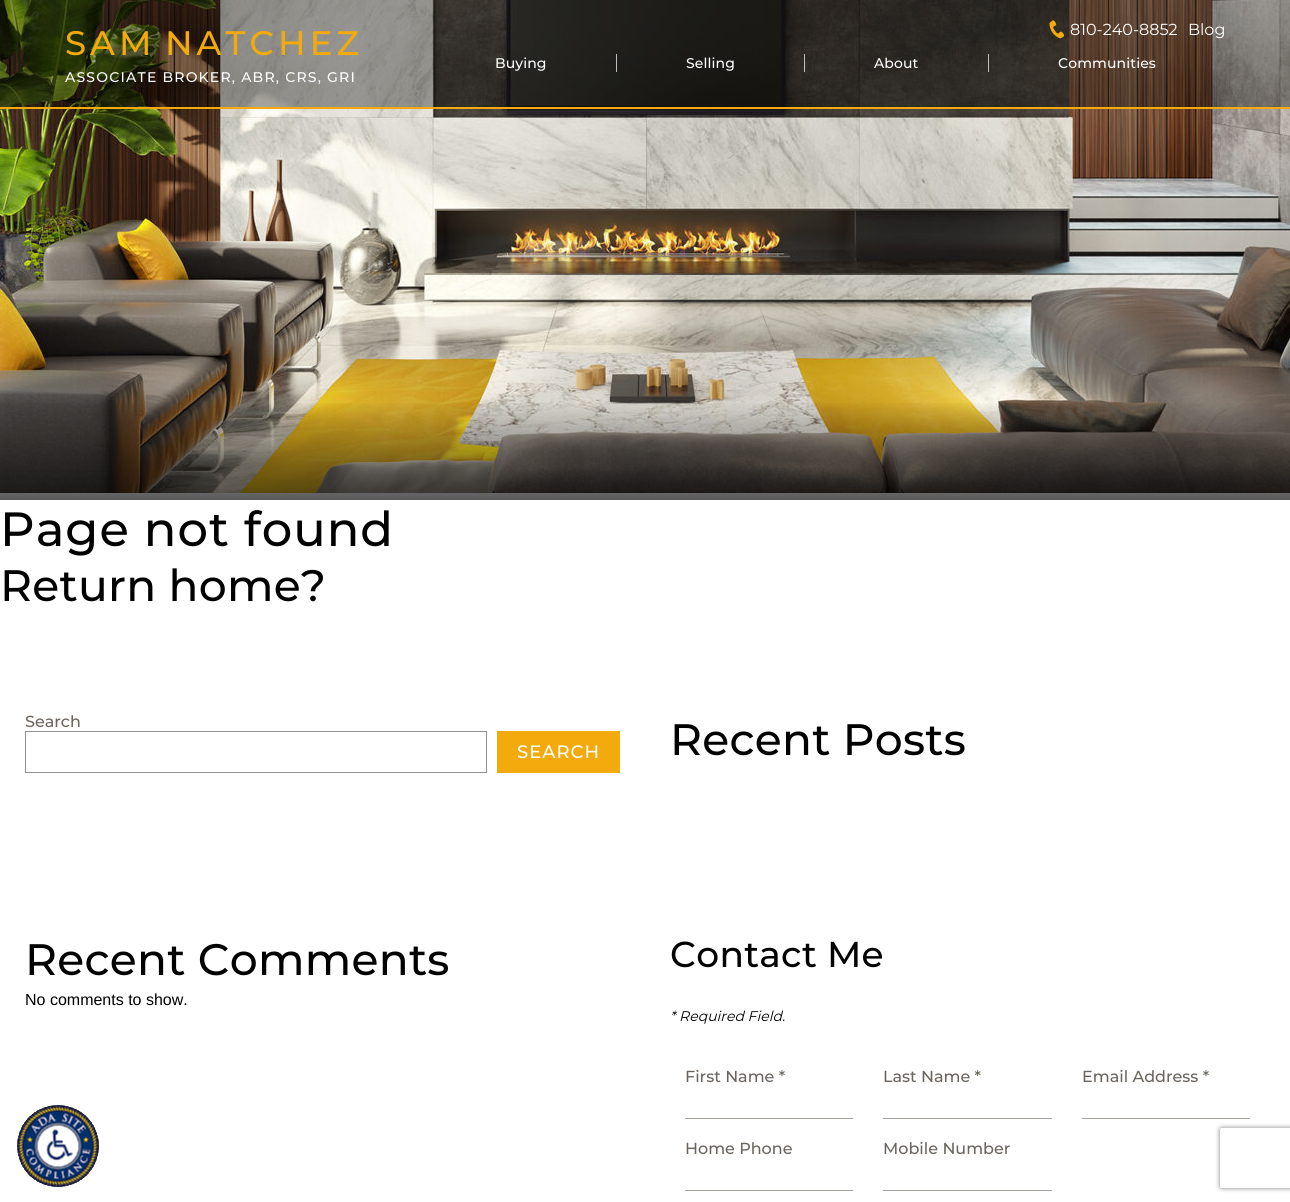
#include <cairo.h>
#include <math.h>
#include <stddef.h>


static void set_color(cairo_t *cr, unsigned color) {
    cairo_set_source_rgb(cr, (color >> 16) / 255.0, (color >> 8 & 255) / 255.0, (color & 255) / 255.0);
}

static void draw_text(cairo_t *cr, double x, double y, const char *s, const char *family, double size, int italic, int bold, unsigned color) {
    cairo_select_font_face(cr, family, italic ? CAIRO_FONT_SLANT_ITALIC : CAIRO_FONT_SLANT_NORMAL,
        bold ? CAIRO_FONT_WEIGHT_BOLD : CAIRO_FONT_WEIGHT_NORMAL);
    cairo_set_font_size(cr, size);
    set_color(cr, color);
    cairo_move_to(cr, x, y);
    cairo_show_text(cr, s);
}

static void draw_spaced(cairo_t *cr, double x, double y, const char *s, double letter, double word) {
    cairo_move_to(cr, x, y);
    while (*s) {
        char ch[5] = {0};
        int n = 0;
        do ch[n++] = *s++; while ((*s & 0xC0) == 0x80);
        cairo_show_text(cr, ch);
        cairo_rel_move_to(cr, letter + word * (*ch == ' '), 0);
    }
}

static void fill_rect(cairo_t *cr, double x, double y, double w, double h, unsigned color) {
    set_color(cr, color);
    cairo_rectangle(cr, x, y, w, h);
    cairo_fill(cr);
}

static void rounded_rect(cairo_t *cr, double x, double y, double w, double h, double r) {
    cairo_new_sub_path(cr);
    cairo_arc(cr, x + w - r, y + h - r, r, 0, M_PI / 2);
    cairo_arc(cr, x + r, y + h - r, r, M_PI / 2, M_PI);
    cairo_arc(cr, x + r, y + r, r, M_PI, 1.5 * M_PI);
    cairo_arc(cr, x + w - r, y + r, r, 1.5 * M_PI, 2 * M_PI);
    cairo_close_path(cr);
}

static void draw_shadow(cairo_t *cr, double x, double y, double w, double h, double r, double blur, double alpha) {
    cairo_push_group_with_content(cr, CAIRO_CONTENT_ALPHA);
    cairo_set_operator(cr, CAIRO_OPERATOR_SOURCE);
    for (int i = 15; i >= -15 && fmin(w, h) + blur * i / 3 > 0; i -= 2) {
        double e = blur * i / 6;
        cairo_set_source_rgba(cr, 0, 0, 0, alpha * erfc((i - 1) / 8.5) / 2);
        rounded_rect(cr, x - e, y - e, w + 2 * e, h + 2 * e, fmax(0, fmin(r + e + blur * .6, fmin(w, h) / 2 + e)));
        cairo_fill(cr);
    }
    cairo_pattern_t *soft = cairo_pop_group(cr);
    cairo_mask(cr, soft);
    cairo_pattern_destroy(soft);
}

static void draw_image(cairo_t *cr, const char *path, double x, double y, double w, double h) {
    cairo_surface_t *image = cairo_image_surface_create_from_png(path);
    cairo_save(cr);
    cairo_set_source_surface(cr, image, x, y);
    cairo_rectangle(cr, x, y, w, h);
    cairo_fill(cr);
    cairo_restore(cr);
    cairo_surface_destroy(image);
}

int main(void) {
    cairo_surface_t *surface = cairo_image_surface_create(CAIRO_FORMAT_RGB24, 1290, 1202);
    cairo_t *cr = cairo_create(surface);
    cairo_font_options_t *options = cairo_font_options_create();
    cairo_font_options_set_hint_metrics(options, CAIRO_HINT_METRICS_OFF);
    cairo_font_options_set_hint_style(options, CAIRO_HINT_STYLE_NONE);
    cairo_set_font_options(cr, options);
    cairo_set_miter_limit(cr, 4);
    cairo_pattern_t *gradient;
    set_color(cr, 0xFFFFFF);
    cairo_paint(cr);
    draw_image(cr, "assets/img1.png", 0, 0, 1290, 493);
    fill_rect(cr, 0, 107, 1290, 2, 0xF2AA0D);
    cairo_set_source_rgba(cr, 0, 0, 0, 0.35);
    cairo_rectangle(cr, 0, 0, 1290, 107);
    cairo_fill(cr);
    cairo_select_font_face(cr, "Montserrat Medium", CAIRO_FONT_SLANT_NORMAL, CAIRO_FONT_WEIGHT_NORMAL);
    cairo_set_font_size(cr, 34);
    set_color(cr, 0xF2AA0D);
    draw_spaced(cr, 65, 55, "SAM", 4, 0);
    draw_spaced(cr, 165, 55, "NATCHEZ", 4, 0);
    cairo_set_font_size(cr, 14);
    set_color(cr, 0xFFFFFF);
    draw_spaced(cr, 65, 82, "ASSOCIATE BROKER, ABR, CRS, GRI", 1.2, 0);
    draw_image(cr, "assets/img2.png", 1049, 20, 16, 19);
    draw_text(cr, 1070, 35, "810-240-8852", "Montserrat", 16, 0, 0, 0xFFFFFF);
    draw_text(cr, 1188, 35, "Blog", "Montserrat", 16, 0, 0, 0xFFFFFF);
    fill_rect(cr, 616, 54, 1, 18, 0xBCBBBA);
    cairo_select_font_face(cr, "Montserrat Medium", CAIRO_FONT_SLANT_NORMAL, CAIRO_FONT_WEIGHT_NORMAL);
    cairo_set_font_size(cr, 14);
    set_color(cr, 0xFFFFFF);
    draw_spaced(cr, 495, 68, "Buying", 0.1, 0);
    cairo_set_source_rgba(cr, 1, 1, 1, 0.7);
    cairo_rectangle(cr, 804, 54, 1, 18);
    cairo_fill(cr);
    set_color(cr, 0xFFFFFF);
    draw_spaced(cr, 686, 68, "Selling", 0.1, 0);
    cairo_set_source_rgba(cr, 1, 1, 1, 0.7);
    cairo_rectangle(cr, 988, 54, 1, 18);
    cairo_fill(cr);
    set_color(cr, 0xFFFFFF);
    draw_spaced(cr, 874, 68, "About", 0.1, 0);
    draw_spaced(cr, 1058, 68, "Communities", 0.1, 0);
    gradient = cairo_pattern_create_linear(645, 400, 645, 500);
    cairo_pattern_add_color_stop_rgba(gradient, 0, 0, 0, 0, 0);
    cairo_pattern_add_color_stop_rgba(gradient, 1, 0, 0, 0, 0.65);
    cairo_set_source(cr, gradient);
    cairo_pattern_destroy(gradient);
    cairo_rectangle(cr, 0, 403, 1290, 97);
    cairo_fill(cr);
    cairo_set_font_size(cr, 48);
    set_color(cr, 0x000000);
    draw_spaced(cr, 0, 546, "Page not found", 1, 0);
    cairo_set_font_size(cr, 44);
    draw_spaced(cr, 0, 601, "Return home?", 0.25, 0);
    draw_text(cr, 25, 727, "Search", "Montserrat Medium", 16, 0, 0, 0x6A645D);
    cairo_rectangle(cr, 25.5, 731.5, 461, 41);
    set_color(cr, 0x949494);
    cairo_set_line_width(cr, 1);
    cairo_stroke(cr);
    fill_rect(cr, 497, 731, 123, 42, 0xF2AA0D);
    cairo_set_font_size(cr, 18);
    set_color(cr, 0xFFFFFF);
    draw_spaced(cr, 517, 758, "SEARCH", 1, 0);
    cairo_set_font_size(cr, 44);
    set_color(cr, 0x000000);
    draw_spaced(cr, 670, 755, "Recent Posts", 0.25, 0);
    draw_spaced(cr, 25, 975, "Recent Comments", 0.25, 0);
    draw_text(cr, 25, 1005, "No comments to show.", "Liberation Sans", 16, 0, 0, 0x000000);
    cairo_select_font_face(cr, "Montserrat Medium", CAIRO_FONT_SLANT_NORMAL, CAIRO_FONT_WEIGHT_NORMAL);
    cairo_set_font_size(cr, 36);
    draw_spaced(cr, 670, 967, "Contact Me", 0.25, 0);
    draw_text(cr, 670, 1021, "* Required Field.", "Montserrat", 14, 1, 0, 0x000000);
    draw_text(cr, 685, 1082, "First Name *", "Montserrat Medium", 16, 0, 0, 0x6A645D);
    fill_rect(cr, 685, 1118, 168, 1, 0xA6A29E);
    draw_text(cr, 883, 1082, "Last Name *", "Montserrat Medium", 16, 0, 0, 0x6A645D);
    fill_rect(cr, 883, 1118, 169, 1, 0xA6A29E);
    draw_text(cr, 1082, 1082, "Email Address *", "Montserrat Medium", 16, 0, 0, 0x6A645D);
    fill_rect(cr, 1082, 1118, 168, 1, 0xA6A29E);
    draw_text(cr, 685, 1154, "Home Phone", "Montserrat Medium", 16, 0, 0, 0x6A645D);
    fill_rect(cr, 685, 1190, 168, 1, 0xA6A29E);
    draw_text(cr, 883, 1154, "Mobile Number", "Montserrat Medium", 16, 0, 0, 0x6A645D);
    fill_rect(cr, 883, 1190, 169, 1, 0xA6A29E);
    draw_image(cr, "assets/img3.png", 17, 1105, 82, 82);
    draw_image(cr, "assets/img4.png", 17, 1105, 82, 82);
    draw_image(cr, "assets/img5.png", 17, 1105, 82, 82);
    draw_image(cr, "assets/img6.png", 17, 1105, 82, 82);
    draw_image(cr, "assets/img7.png", 17, 1105, 82, 82);
    cairo_save(cr);
    cairo_set_fill_rule(cr, CAIRO_FILL_RULE_EVEN_ODD);
    cairo_new_path(cr);
    cairo_move_to(cr, 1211, 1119);
    cairo_line_to(cr, 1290, 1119);
    cairo_line_to(cr, 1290, 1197);
    cairo_line_to(cr, 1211, 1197);
    cairo_close_path(cr);
    cairo_move_to(cr, 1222, 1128);
    cairo_line_to(cr, 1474, 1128);
    cairo_curve_to(cr, 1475, 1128, 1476, 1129, 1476, 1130);
    cairo_line_to(cr, 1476, 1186);
    cairo_curve_to(cr, 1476, 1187, 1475, 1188, 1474, 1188);
    cairo_line_to(cr, 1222, 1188);
    cairo_curve_to(cr, 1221, 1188, 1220, 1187, 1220, 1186);
    cairo_line_to(cr, 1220, 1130);
    cairo_curve_to(cr, 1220, 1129, 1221, 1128, 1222, 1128);
    cairo_close_path(cr);
    cairo_clip(cr);
    set_color(cr, 0x808080);
    draw_shadow(cr, 1220, 1128, 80, 60, 2, 2.5, 1);
    cairo_restore(cr);
    cairo_surface_write_to_png(surface, "output.png");
    cairo_font_options_destroy(options);
    cairo_destroy(cr);
    cairo_surface_destroy(surface);
    return 0;
}
